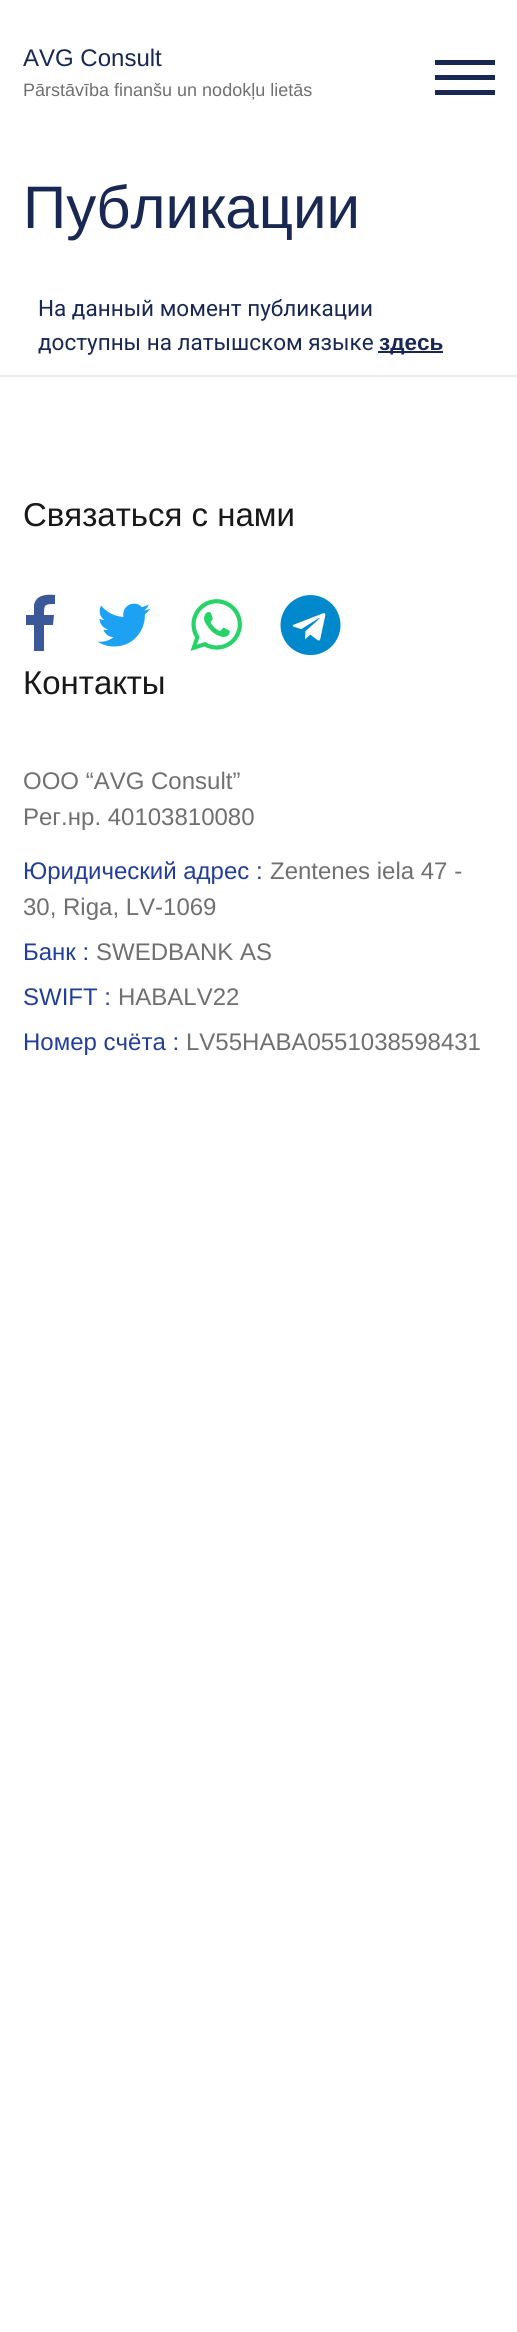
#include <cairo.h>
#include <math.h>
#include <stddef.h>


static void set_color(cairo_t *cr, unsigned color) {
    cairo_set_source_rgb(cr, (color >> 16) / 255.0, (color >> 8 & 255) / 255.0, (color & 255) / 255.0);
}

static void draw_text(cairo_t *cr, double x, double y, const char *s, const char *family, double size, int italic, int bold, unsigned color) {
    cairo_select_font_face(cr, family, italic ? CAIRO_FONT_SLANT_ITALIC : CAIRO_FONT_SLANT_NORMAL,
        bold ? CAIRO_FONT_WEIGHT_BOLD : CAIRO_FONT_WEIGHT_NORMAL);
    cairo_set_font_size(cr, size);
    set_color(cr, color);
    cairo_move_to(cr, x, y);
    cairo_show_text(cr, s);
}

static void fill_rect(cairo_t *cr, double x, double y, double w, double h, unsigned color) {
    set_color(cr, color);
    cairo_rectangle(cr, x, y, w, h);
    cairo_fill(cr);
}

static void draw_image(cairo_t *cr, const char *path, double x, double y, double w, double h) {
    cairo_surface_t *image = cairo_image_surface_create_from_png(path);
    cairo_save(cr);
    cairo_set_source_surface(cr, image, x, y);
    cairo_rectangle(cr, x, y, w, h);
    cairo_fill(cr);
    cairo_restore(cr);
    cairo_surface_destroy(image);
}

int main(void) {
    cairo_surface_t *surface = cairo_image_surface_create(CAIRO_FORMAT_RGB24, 517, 2332);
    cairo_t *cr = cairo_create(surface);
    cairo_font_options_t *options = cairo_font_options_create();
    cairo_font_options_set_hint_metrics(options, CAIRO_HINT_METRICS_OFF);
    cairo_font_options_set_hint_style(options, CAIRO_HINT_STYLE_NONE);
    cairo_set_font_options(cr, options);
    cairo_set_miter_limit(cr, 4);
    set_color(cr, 0xFFFFFF);
    cairo_paint(cr);
    draw_text(cr, 23, 66, "AVG Consult", "Liberation Sans", 24, 0, 0, 0x192852);
    draw_text(cr, 23, 96, "Pārstāvība finanšu un nodokļu lietās", "Liberation Sans", 18, 0, 0, 0x707070);
    fill_rect(cr, 435, 75, 60, 5, 0x192852);
    fill_rect(cr, 435, 60, 60, 5, 0x192852);
    fill_rect(cr, 435, 90, 60, 5, 0x192852);
    draw_text(cr, 23, 228, "Публикации", "Liberation Sans", 60, 0, 0, 0x192852);
    draw_text(cr, 38, 316, "На данный момент публикации", "Roboto", 22.5, 0, 0, 0x192852);
    draw_text(cr, 38, 350, "доступны на латышском языке", "Roboto", 22.5, 0, 0, 0x192852);
    fill_rect(cr, 378, 351, 65, 2, 0x192852);
    draw_text(cr, 379, 350, "здесь", "Liberation Sans", 22.5, 0, 1, 0x192852);
    fill_rect(cr, 0, 375, 517, 2, 0xEBEBEB);
    draw_text(cr, 23, 526, "Связаться с нами", "Liberation Sans", 33, 0, 0, 0x191919);
    set_color(cr, 0x3B5998);
    cairo_new_path(cr);
    cairo_move_to(cr, 55, 595);
    cairo_line_to(cr, 55, 604);
    cairo_curve_to(cr, 44, 604, 44, 605, 44, 615);
    cairo_line_to(cr, 54, 615);
    cairo_line_to(cr, 53, 625);
    cairo_line_to(cr, 44, 625);
    cairo_line_to(cr, 44, 651);
    cairo_line_to(cr, 34, 651);
    cairo_line_to(cr, 34, 625);
    cairo_line_to(cr, 26, 625);
    cairo_line_to(cr, 26, 615);
    cairo_line_to(cr, 34, 615);
    cairo_line_to(cr, 34, 605);
    cairo_curve_to(cr, 36, 595, 46, 594, 55, 595);
    cairo_close_path(cr);
    cairo_fill(cr);
    draw_image(cr, "assets/img1.png", 97, 603, 54, 44);
    draw_image(cr, "assets/img2.png", 190, 599, 52, 52);
    draw_image(cr, "assets/img3.png", 280, 595, 61, 61);
    draw_text(cr, 23, 694, "Контакты", "Liberation Sans", 33, 0, 0, 0x191919);
    draw_text(cr, 23, 789, "ООО “AVG Consult”", "Liberation Sans", 24, 0, 0, 0x707070);
    draw_text(cr, 23, 825, "Рег.нр. 40103810080", "Liberation Sans", 24, 0, 0, 0x707070);
    draw_text(cr, 23, 879, "Юридический адрес :", "Liberation Sans", 24, 0, 0, 0x233E99);
    draw_text(cr, 270, 879, "Zentenes iela 47 -", "Liberation Sans", 24, 0, 0, 0x707070);
    draw_text(cr, 23, 915, "30, Riga, LV-1069", "Liberation Sans", 24, 0, 0, 0x707070);
    draw_text(cr, 23, 960, "Банк :", "Liberation Sans", 24, 0, 0, 0x233E99);
    draw_text(cr, 96, 960, "SWEDBANK AS", "Liberation Sans", 24, 0, 0, 0x707070);
    draw_text(cr, 23, 1005, "SWIFT :", "Liberation Sans", 24, 0, 0, 0x233E99);
    draw_text(cr, 118, 1005, "HABALV22", "Liberation Sans", 24, 0, 0, 0x707070);
    draw_text(cr, 23, 1050, "Номер счёта :", "Liberation Sans", 24, 0, 0, 0x233E99);
    draw_text(cr, 186, 1050, "LV55HABA0551038598431", "Liberation Sans", 24, 0, 0, 0x707070);
    cairo_surface_write_to_png(surface, "output.png");
    cairo_font_options_destroy(options);
    cairo_destroy(cr);
    cairo_surface_destroy(surface);
    return 0;
}
